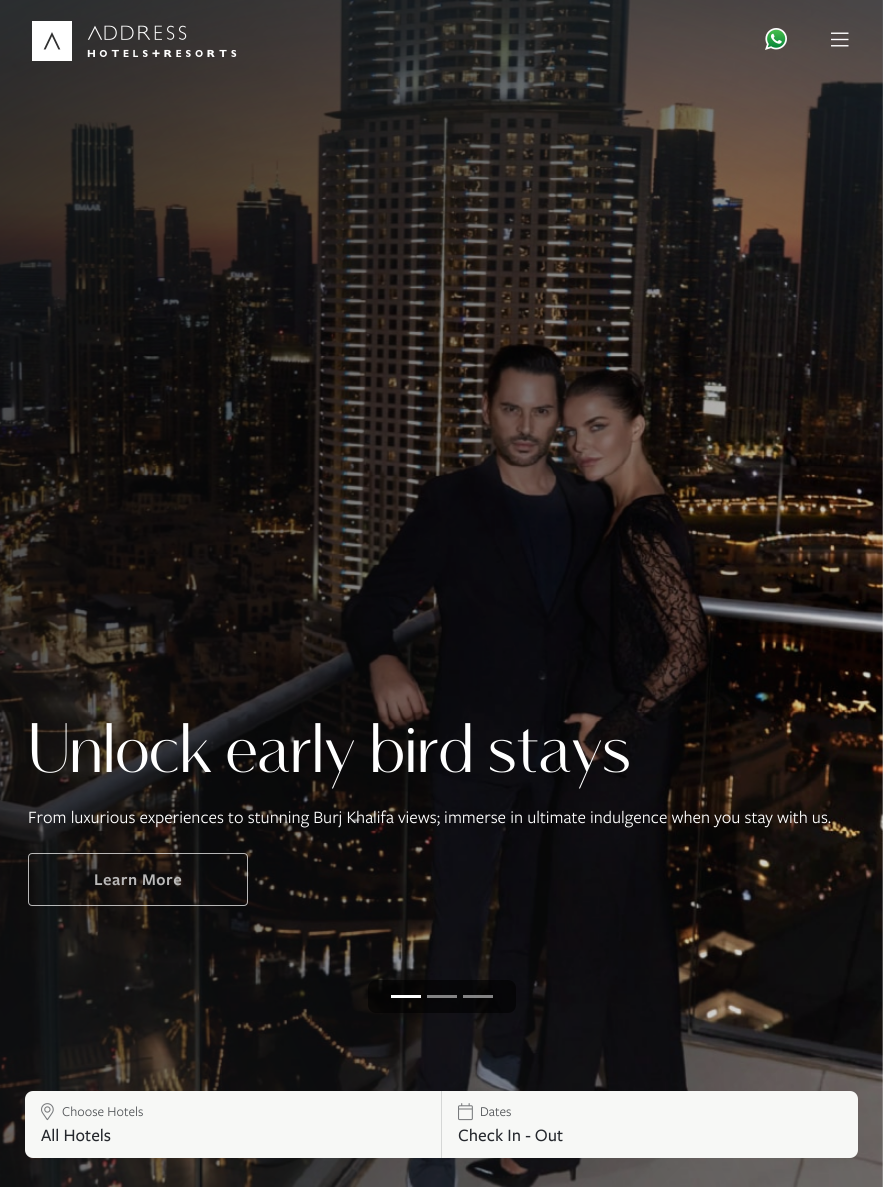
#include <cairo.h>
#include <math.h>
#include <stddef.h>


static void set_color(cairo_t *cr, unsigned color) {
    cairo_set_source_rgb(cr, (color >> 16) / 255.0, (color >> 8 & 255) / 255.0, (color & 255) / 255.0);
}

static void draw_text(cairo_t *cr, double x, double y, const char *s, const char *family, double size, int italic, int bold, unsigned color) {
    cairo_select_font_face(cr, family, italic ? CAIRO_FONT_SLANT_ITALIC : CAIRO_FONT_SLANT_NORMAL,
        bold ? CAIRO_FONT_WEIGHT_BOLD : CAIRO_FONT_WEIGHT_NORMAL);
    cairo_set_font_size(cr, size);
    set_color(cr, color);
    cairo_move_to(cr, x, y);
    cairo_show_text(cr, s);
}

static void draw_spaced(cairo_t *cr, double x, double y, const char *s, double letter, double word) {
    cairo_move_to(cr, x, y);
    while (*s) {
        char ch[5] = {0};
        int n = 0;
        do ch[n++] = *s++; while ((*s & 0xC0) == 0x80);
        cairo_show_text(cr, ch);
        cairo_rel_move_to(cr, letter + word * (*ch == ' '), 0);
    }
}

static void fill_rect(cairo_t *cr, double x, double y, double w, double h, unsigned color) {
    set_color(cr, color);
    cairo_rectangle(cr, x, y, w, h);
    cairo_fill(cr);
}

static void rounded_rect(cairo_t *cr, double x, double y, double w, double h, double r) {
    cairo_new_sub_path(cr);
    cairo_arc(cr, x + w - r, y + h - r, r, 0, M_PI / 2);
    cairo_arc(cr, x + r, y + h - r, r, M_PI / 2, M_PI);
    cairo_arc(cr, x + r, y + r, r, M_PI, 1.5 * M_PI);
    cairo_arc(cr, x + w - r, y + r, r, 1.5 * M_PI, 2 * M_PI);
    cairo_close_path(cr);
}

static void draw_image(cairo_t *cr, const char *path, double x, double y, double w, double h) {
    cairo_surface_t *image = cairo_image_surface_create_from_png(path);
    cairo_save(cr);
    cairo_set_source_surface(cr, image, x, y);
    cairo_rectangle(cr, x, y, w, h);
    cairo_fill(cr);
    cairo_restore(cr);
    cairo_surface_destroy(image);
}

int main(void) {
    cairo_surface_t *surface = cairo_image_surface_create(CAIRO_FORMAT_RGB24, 883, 1187);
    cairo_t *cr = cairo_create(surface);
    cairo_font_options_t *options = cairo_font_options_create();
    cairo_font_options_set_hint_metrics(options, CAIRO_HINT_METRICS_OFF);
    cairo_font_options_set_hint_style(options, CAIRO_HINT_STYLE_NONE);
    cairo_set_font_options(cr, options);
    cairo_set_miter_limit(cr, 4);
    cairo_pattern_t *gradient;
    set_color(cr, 0xFFFFFF);
    cairo_paint(cr);
    draw_image(cr, "assets/img4.png", 0, 0, 883, 1187);
    gradient = cairo_pattern_create_linear(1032, 305, -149, 882);
    cairo_pattern_add_color_stop_rgba(gradient, 0.2, 0.145, 0.157, 0.176, 0);
    cairo_pattern_add_color_stop_rgba(gradient, 0.96, 0.145, 0.157, 0.176, 0.5);
    cairo_set_source(cr, gradient);
    cairo_pattern_destroy(gradient);
    cairo_rectangle(cr, 0, 0, 883, 1187);
    cairo_fill(cr);
    gradient = cairo_pattern_create_linear(-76, 76, 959, 1111);
    cairo_pattern_add_color_stop_rgba(gradient, 0.02, 0, 0, 0, 0.7);
    cairo_pattern_add_color_stop_rgba(gradient, 0.9, 0, 0, 0, 0);
    cairo_set_source(cr, gradient);
    cairo_pattern_destroy(gradient);
    cairo_rectangle(cr, 0, 0, 883, 1187);
    cairo_fill(cr);
    gradient = cairo_pattern_create_radial(0, 0, 0, 0, 0, 1);
    cairo_pattern_set_matrix(gradient, &(cairo_matrix_t){1.0 / 1122, 0, 0, 1.0 / 1279, -1.0 * 419 / 1122, -1.0 * 1187 / 1279});
    cairo_pattern_add_color_stop_rgba(gradient, 0, 0.165, 0.235, 0.267, 0);
    cairo_pattern_add_color_stop_rgba(gradient, 0.67, 0.165, 0.235, 0.267, 0);
    cairo_pattern_add_color_stop_rgba(gradient, 1, 0.165, 0.235, 0.267, 0.48);
    cairo_set_source(cr, gradient);
    cairo_pattern_destroy(gradient);
    cairo_rectangle(cr, 0, 0, 883, 469);
    cairo_fill(cr);
    draw_image(cr, "assets/img1.png", 32, 21, 205, 40);
    draw_image(cr, "assets/img2.png", 765, 28, 22, 22);
    draw_image(cr, "assets/img3.png", 831, 32, 18, 15);
    cairo_select_font_face(cr, "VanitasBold", CAIRO_FONT_SLANT_NORMAL, CAIRO_FONT_WEIGHT_BOLD);
    cairo_set_font_size(cr, 72);
    set_color(cr, 0xFFFFFF);
    draw_spaced(cr, 28, 772, "Unlock early bird stays", -2, 0);
    draw_text(cr, 28, 823, "From luxurious experiences to stunning Burj Khalifa views; immerse in ultimate indulgence when you stay with us.", "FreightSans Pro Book", 18, 0, 0, 0xFFFFFF);
    rounded_rect(cr, 28.5, 853.5, 219, 52, 3.5);
    cairo_set_source_rgba(cr, 1, 1, 1, 0.7);
    cairo_set_line_width(cr, 1);
    cairo_stroke(cr);
    cairo_select_font_face(cr, "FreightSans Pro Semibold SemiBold", CAIRO_FONT_SLANT_NORMAL, CAIRO_FONT_WEIGHT_NORMAL);
    cairo_set_font_size(cr, 17);
    set_color(cr, 0xBAB9B9);
    draw_spaced(cr, 94, 885, "Learn More", 0.5, 0);
    cairo_set_source_rgba(cr, 0, 0, 0, 0.6);
    rounded_rect(cr, 368, 980, 148, 33, 8);
    cairo_fill(cr);
    fill_rect(cr, 391, 995, 30, 3, 0xFFFFFF);
    fill_rect(cr, 427, 995, 30, 3, 0x838384);
    cairo_set_source_rgba(cr, 1, 1, 1, 0.5);
    cairo_rectangle(cr, 463, 995, 30, 3);
    cairo_fill(cr);
    set_color(cr, 0xF7F8F6);
    rounded_rect(cr, 25, 1091, 833, 67, 8);
    cairo_fill(cr);
    fill_rect(cr, 441, 1091, 1, 67, 0xD5D7D6);
    draw_image(cr, "assets/img5.png", 41, 1103, 13, 18);
    draw_text(cr, 62, 1116, "Choose Hotels", "FreightSans Pro Book", 14, 0, 0, 0x4F5255);
    draw_text(cr, 41, 1141, "All Hotels", "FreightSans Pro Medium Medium", 18, 0, 0, 0x25282D);
    draw_image(cr, "assets/img6.png", 458, 1103, 15, 18);
    draw_text(cr, 480, 1116, "Dates", "FreightSans Pro Book", 14, 0, 0, 0x4F5255);
    draw_text(cr, 458, 1141, "Check In - Out", "FreightSans Pro Medium Medium", 18, 0, 0, 0x25282D);
    cairo_surface_write_to_png(surface, "output.png");
    cairo_font_options_destroy(options);
    cairo_destroy(cr);
    cairo_surface_destroy(surface);
    return 0;
}
